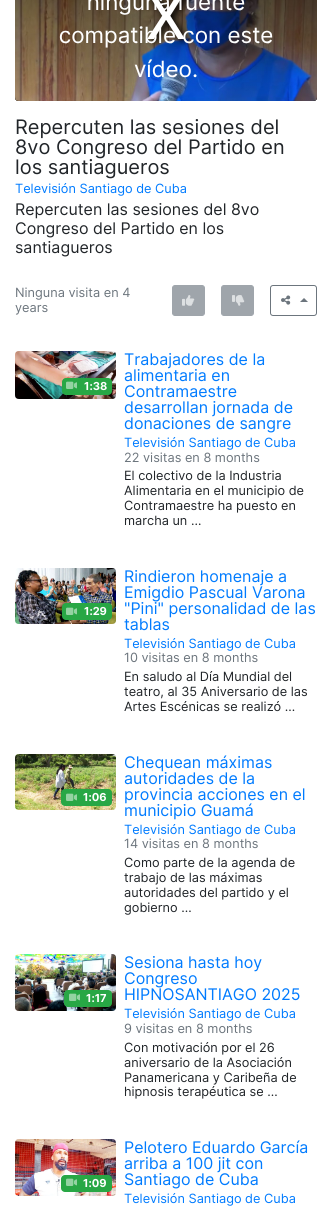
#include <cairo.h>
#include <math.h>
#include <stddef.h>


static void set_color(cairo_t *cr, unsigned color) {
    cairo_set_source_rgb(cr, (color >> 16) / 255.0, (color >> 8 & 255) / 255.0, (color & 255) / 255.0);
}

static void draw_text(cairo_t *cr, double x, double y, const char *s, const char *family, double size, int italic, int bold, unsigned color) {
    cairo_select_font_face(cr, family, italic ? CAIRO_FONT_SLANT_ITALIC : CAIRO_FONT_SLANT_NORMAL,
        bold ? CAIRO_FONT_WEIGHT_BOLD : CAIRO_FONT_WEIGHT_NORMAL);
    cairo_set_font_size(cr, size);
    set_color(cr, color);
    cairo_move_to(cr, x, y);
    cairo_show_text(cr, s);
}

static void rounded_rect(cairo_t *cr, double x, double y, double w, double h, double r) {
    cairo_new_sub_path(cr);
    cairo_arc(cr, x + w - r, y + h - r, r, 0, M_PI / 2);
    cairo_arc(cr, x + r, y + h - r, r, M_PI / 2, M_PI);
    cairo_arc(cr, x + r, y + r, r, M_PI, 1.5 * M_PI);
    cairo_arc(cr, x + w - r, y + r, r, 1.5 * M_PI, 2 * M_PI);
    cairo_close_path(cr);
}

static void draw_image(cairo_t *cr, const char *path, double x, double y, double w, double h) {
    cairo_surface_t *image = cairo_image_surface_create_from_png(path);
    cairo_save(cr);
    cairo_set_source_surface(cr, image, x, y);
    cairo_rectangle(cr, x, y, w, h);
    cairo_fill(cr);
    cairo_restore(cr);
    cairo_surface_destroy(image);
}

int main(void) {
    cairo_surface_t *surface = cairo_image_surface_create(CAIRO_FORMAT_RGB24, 332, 1210);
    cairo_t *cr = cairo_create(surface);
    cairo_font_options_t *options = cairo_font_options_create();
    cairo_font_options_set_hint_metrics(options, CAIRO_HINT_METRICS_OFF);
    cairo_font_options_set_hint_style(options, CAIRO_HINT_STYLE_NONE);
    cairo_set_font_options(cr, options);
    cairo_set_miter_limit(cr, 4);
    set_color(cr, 0xFFFFFF);
    cairo_paint(cr);
    draw_image(cr, "assets/img1.png", 15, 0, 302, 101);
    draw_text(cr, 15, 134, "Repercuten las sesiones del", "Inter", 20, 0, 0, 0x212529);
    draw_text(cr, 15, 154, "8vo Congreso del Partido en", "Inter", 20, 0, 0, 0x212529);
    draw_text(cr, 15, 174, "los santiagueros", "Inter", 20, 0, 0, 0x212529);
    draw_text(cr, 15, 193, "Televisión Santiago de Cuba", "Inter", 12.75, 0, 0, 0x007BFF);
    draw_text(cr, 15, 215, "Repercuten las sesiones del 8vo", "Inter", 16, 0, 0, 0x212529);
    draw_text(cr, 15, 234, "Congreso del Partido en los", "Inter", 16, 0, 0, 0x212529);
    draw_text(cr, 15, 253, "santiagueros", "Inter", 16, 0, 0, 0x212529);
    draw_text(cr, 15, 297, "Ninguna visita en 4", "Inter", 12.75, 0, 0, 0x6C757D);
    draw_text(cr, 15, 312, "years", "Inter", 12.75, 0, 0, 0x6C757D);
    set_color(cr, 0x9FA5AB);
    rounded_rect(cr, 172.5, 285.5, 32, 30, 2.5);
    cairo_fill_preserve(cr);
    cairo_set_line_width(cr, 1);
    cairo_stroke(cr);
    draw_image(cr, "assets/img2.png", 182, 295, 13, 11);
    rounded_rect(cr, 221.5, 285.5, 32, 30, 2.5);
    cairo_fill_preserve(cr);
    cairo_stroke(cr);
    draw_image(cr, "assets/img3.png", 232, 295, 13, 11);
    rounded_rect(cr, 270.5, 285.5, 46, 30, 2.5);
    set_color(cr, 0x6C757D);
    cairo_stroke(cr);
    draw_image(cr, "assets/img4.png", 281, 295, 10, 10);
    cairo_new_path(cr);
    cairo_move_to(cr, 308, 302);
    cairo_line_to(cr, 300, 302);
    cairo_line_to(cr, 304, 298);
    cairo_close_path(cr);
    cairo_fill(cr);
    draw_image(cr, "assets/img5.png", 15, 351, 101, 48);
    set_color(cr, 0x28A745);
    rounded_rect(cr, 62, 378, 50, 17, 4);
    cairo_fill(cr);
    draw_image(cr, "assets/img6.png", 66, 381, 11, 8);
    draw_text(cr, 84, 390, "1:38", "Inter", 11, 0, 1, 0xFFFFFF);
    draw_text(cr, 124, 365, "Trabajadores de la", "Inter", 16, 0, 0, 0x007BFF);
    draw_text(cr, 124, 381, "alimentaria en", "Inter", 16, 0, 0, 0x007BFF);
    draw_text(cr, 124, 397, "Contramaestre", "Inter", 16, 0, 0, 0x007BFF);
    draw_text(cr, 124, 413, "desarrollan jornada de", "Inter", 16, 0, 0, 0x007BFF);
    draw_text(cr, 124, 429, "donaciones de sangre", "Inter", 16, 0, 0, 0x007BFF);
    draw_text(cr, 124, 447, "Televisión Santiago de Cuba", "Inter", 12.75, 0, 0, 0x007BFF);
    draw_text(cr, 124, 462, "22 visitas en 8 months", "Inter", 12.75, 0, 0, 0x6C757D);
    draw_text(cr, 124, 480, "El colectivo de la Industria", "Inter", 12.75, 0, 0, 0x212529);
    draw_text(cr, 124, 495, "Alimentaria en el municipio de", "Inter", 12.75, 0, 0, 0x212529);
    draw_text(cr, 124, 510, "Contramaestre ha puesto en", "Inter", 12.75, 0, 0, 0x212529);
    draw_text(cr, 124, 525, "marcha un …", "Inter", 12.75, 0, 0, 0x212529);
    draw_image(cr, "assets/img7.png", 15, 568, 101, 56);
    set_color(cr, 0x28A745);
    rounded_rect(cr, 62, 603, 50, 17, 4);
    cairo_fill(cr);
    draw_image(cr, "assets/img6.png", 66, 607, 11, 8);
    draw_text(cr, 84, 615, "1:29", "Inter", 11, 0, 1, 0xFFFFFF);
    draw_text(cr, 124, 582, "Rindieron homenaje a", "Inter", 16, 0, 0, 0x007BFF);
    draw_text(cr, 124, 598, "Emigdio Pascual Varona", "Inter", 16, 0, 0, 0x007BFF);
    draw_text(cr, 124, 614, "\"Pini\" personalidad de las", "Inter", 16, 0, 0, 0x007BFF);
    draw_text(cr, 124, 630, "tablas", "Inter", 16, 0, 0, 0x007BFF);
    draw_text(cr, 124, 648, "Televisión Santiago de Cuba", "Inter", 12.75, 0, 0, 0x007BFF);
    draw_text(cr, 124, 662, "10 visitas en 8 months", "Inter", 12.75, 0, 0, 0x6C757D);
    draw_text(cr, 124, 681, "En saludo al Día Mundial del", "Inter", 12.75, 0, 0, 0x212529);
    draw_text(cr, 124, 696, "teatro, al 35 Aniversario de las", "Inter", 12.75, 0, 0, 0x212529);
    draw_text(cr, 124, 711, "Artes Escénicas se realizó …", "Inter", 12.75, 0, 0, 0x212529);
    draw_image(cr, "assets/img8.png", 15, 754, 101, 56);
    set_color(cr, 0x28A745);
    rounded_rect(cr, 61, 789, 51, 17, 4);
    cairo_fill(cr);
    draw_image(cr, "assets/img6.png", 66, 793, 11, 8);
    draw_text(cr, 83, 801, "1:06", "Inter", 11, 0, 1, 0xFFFFFF);
    draw_text(cr, 124, 768, "Chequean máximas", "Inter", 16, 0, 0, 0x007BFF);
    draw_text(cr, 124, 784, "autoridades de la", "Inter", 16, 0, 0, 0x007BFF);
    draw_text(cr, 124, 800, "provincia acciones en el", "Inter", 16, 0, 0, 0x007BFF);
    draw_text(cr, 124, 816, "municipio Guamá", "Inter", 16, 0, 0, 0x007BFF);
    draw_text(cr, 124, 834, "Televisión Santiago de Cuba", "Inter", 12.75, 0, 0, 0x007BFF);
    draw_text(cr, 124, 848, "14 visitas en 8 months", "Inter", 12.75, 0, 0, 0x6C757D);
    draw_text(cr, 124, 867, "Como parte de la agenda de", "Inter", 12.75, 0, 0, 0x212529);
    draw_text(cr, 124, 882, "trabajo de las máximas", "Inter", 12.75, 0, 0, 0x212529);
    draw_text(cr, 124, 897, "autoridades del partido y el", "Inter", 12.75, 0, 0, 0x212529);
    draw_text(cr, 124, 912, "gobierno …", "Inter", 12.75, 0, 0, 0x212529);
    draw_image(cr, "assets/img9.png", 15, 954, 101, 57);
    set_color(cr, 0x28A745);
    rounded_rect(cr, 64, 990, 48, 17, 4);
    cairo_fill(cr);
    draw_image(cr, "assets/img6.png", 69, 993, 11, 8);
    draw_text(cr, 86, 1002, "1:17", "Inter", 11, 0, 1, 0xFFFFFF);
    draw_text(cr, 124, 968, "Sesiona hasta hoy", "Inter", 16, 0, 0, 0x007BFF);
    draw_text(cr, 124, 984, "Congreso", "Inter", 16, 0, 0, 0x007BFF);
    draw_text(cr, 124, 1000, "HIPNOSANTIAGO 2025", "Inter", 16, 0, 0, 0x007BFF);
    draw_text(cr, 124, 1018, "Televisión Santiago de Cuba", "Inter", 12.75, 0, 0, 0x007BFF);
    draw_text(cr, 124, 1033, "9 visitas en 8 months", "Inter", 12.75, 0, 0, 0x6C757D);
    draw_text(cr, 124, 1052, "Con motivación por el 26", "Inter", 12.75, 0, 0, 0x212529);
    draw_text(cr, 124, 1067, "aniversario de la Asociación", "Inter", 12.75, 0, 0, 0x212529);
    draw_text(cr, 124, 1082, "Panamericana y Caribeña de", "Inter", 12.75, 0, 0, 0x212529);
    draw_text(cr, 124, 1096, "hipnosis terapéutica se …", "Inter", 12.75, 0, 0, 0x212529);
    draw_image(cr, "assets/img10.png", 15, 1139, 101, 57);
    set_color(cr, 0x28A745);
    rounded_rect(cr, 61, 1175, 51, 17, 4);
    cairo_fill(cr);
    draw_image(cr, "assets/img6.png", 66, 1178, 11, 8);
    draw_text(cr, 83, 1187, "1:09", "Inter", 11, 0, 1, 0xFFFFFF);
    draw_text(cr, 124, 1153, "Pelotero Eduardo García", "Inter", 16, 0, 0, 0x007BFF);
    draw_text(cr, 124, 1169, "arriba a 100 jit con", "Inter", 16, 0, 0, 0x007BFF);
    draw_text(cr, 124, 1185, "Santiago de Cuba", "Inter", 16, 0, 0, 0x007BFF);
    draw_text(cr, 124, 1203, "Televisión Santiago de Cuba", "Inter", 12.75, 0, 0, 0x007BFF);
    cairo_surface_write_to_png(surface, "output.png");
    cairo_font_options_destroy(options);
    cairo_destroy(cr);
    cairo_surface_destroy(surface);
    return 0;
}
